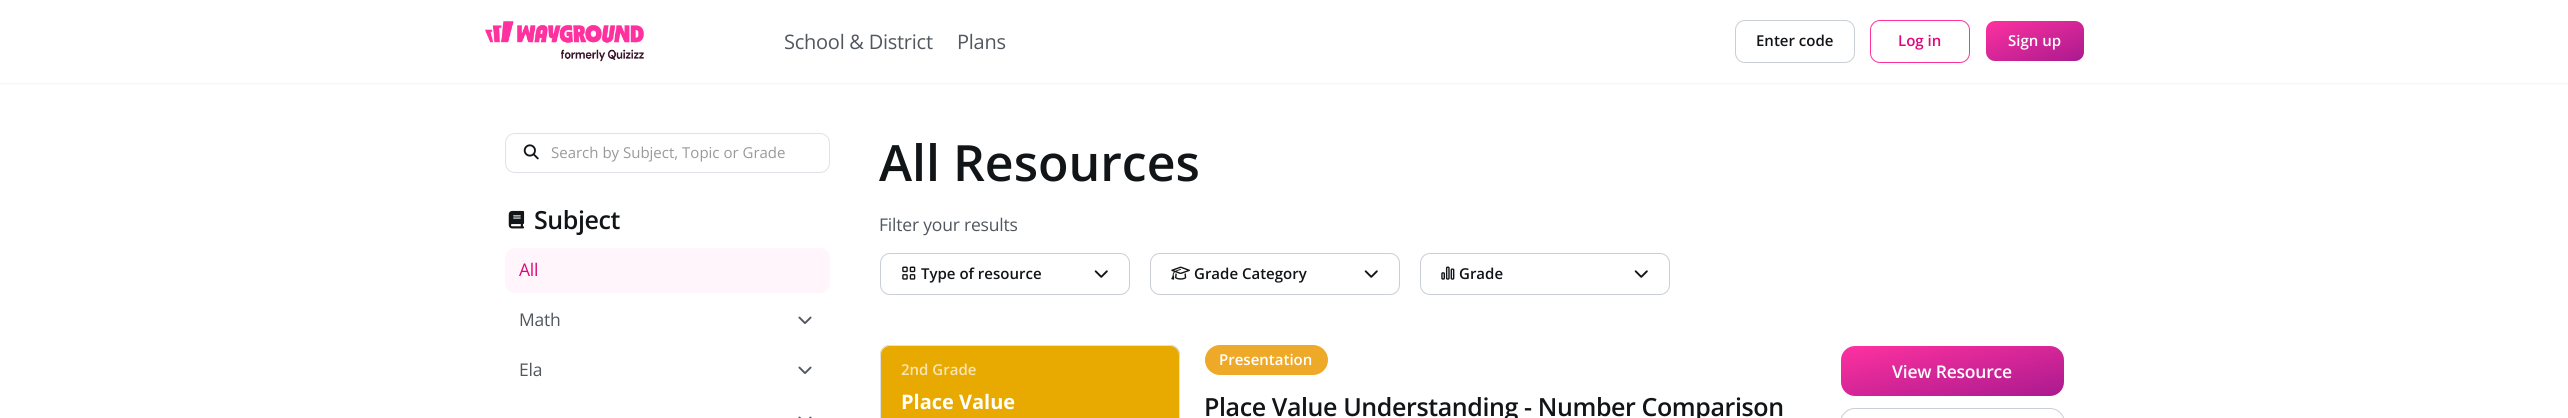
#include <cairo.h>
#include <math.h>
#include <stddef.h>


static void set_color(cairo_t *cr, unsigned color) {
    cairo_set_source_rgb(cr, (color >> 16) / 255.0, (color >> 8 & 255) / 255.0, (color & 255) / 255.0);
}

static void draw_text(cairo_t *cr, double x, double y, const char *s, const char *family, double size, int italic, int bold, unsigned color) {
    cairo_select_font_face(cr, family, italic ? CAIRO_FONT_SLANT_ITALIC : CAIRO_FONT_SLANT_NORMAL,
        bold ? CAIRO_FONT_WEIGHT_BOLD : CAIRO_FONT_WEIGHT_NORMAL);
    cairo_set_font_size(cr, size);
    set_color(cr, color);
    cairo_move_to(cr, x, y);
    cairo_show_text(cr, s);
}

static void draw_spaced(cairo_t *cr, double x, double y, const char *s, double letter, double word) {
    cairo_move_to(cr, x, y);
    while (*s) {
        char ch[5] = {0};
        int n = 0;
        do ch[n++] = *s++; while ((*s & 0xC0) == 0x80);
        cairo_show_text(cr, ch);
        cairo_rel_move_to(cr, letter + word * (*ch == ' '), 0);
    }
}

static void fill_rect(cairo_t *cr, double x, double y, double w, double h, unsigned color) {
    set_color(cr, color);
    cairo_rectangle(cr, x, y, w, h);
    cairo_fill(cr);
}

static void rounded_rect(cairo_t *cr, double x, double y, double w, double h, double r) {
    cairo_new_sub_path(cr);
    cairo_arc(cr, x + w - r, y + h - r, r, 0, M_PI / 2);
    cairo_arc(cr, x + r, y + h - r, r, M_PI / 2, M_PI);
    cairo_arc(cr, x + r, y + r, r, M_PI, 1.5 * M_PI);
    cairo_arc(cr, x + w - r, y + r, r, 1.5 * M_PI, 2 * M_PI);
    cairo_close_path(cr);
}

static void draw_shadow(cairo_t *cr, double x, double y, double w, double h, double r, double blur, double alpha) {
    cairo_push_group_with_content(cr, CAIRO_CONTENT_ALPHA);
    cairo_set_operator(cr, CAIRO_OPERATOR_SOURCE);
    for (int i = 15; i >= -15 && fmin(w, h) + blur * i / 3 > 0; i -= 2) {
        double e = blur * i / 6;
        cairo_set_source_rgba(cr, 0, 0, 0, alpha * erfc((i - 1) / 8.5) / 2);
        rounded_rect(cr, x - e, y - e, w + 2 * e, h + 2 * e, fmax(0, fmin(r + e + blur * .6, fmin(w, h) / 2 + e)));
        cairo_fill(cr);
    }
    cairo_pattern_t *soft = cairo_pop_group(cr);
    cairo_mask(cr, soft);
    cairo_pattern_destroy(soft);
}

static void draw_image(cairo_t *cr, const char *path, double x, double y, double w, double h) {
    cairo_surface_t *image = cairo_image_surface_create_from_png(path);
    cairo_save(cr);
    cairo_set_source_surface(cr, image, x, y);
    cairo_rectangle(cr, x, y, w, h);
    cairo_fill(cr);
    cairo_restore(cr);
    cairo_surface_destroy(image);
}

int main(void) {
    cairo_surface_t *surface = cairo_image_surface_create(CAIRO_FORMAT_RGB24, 2568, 418);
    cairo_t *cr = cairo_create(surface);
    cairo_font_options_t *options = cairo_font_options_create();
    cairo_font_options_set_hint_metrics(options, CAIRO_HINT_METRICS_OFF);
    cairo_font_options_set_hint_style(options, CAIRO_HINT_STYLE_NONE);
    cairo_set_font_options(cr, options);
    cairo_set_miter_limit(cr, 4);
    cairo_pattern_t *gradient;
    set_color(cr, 0xFFFFFF);
    cairo_paint(cr);
    set_color(cr, 0x262A30);
    draw_shadow(cr, 0, 1, 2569, 83, 0, 1, 0.05);
    fill_rect(cr, 0, 0, 2568, 83, 0xFFFFFF);
    draw_image(cr, "assets/img1.png", 485, 21, 159, 41);
    cairo_select_font_face(cr, "Open Sans", CAIRO_FONT_SLANT_NORMAL, CAIRO_FONT_WEIGHT_NORMAL);
    cairo_set_font_size(cr, 20);
    set_color(cr, 0x50575E);
    draw_spaced(cr, 784, 49, "School & District", -0.25, 0);
    draw_spaced(cr, 957, 49, "Plans", -0.25, 0);
    rounded_rect(cr, 1735.5, 20.5, 119, 42, 9.5);
    set_color(cr, 0xC9CED4);
    cairo_set_line_width(cr, 1);
    cairo_stroke(cr);
    draw_text(cr, 1756, 46, "Enter code", "Open Sans SemiBold", 15, 0, 0, 0x121517);
    rounded_rect(cr, 1870.5, 20.5, 99, 42, 9.5);
    set_color(cr, 0xFF319F);
    cairo_stroke(cr);
    draw_text(cr, 1898, 46, "Log in", "Open Sans SemiBold", 15, 0, 0, 0xE0067B);
    gradient = cairo_pattern_create_linear(2021, 7, 2049, 75);
    cairo_pattern_add_color_stop_rgba(gradient, 0, 1, 0.192, 0.624, 1);
    cairo_pattern_add_color_stop_rgba(gradient, 1, 0.663, 0.102, 0.561, 1);
    cairo_set_source(cr, gradient);
    cairo_pattern_destroy(gradient);
    rounded_rect(cr, 1986, 21, 98, 40, 9);
    cairo_fill(cr);
    draw_text(cr, 2008, 46, "Sign up", "Open Sans SemiBold", 15, 0, 0, 0xFFFFFF);
    rounded_rect(cr, 505.5, 133.5, 324, 39, 9.5);
    set_color(cr, 0xDFE2E7);
    cairo_stroke(cr);
    draw_image(cr, "assets/img2.png", 523, 144, 16, 16);
    draw_text(cr, 551, 158, "Search by Subject, Topic or Grade", "Open Sans", 15, 0, 0, 0x9A9A9A);
    draw_image(cr, "assets/img3.png", 508, 210, 17, 19);
    cairo_select_font_face(cr, "Open Sans SemiBold", CAIRO_FONT_SLANT_NORMAL, CAIRO_FONT_WEIGHT_NORMAL);
    cairo_set_font_size(cr, 25);
    set_color(cr, 0x121517);
    draw_spaced(cr, 534, 229, "Subject", -0.4, 0);
    set_color(cr, 0xFFF5FA);
    rounded_rect(cr, 505, 248, 325, 45, 10);
    cairo_fill(cr);
    cairo_select_font_face(cr, "Open Sans", CAIRO_FONT_SLANT_NORMAL, CAIRO_FONT_WEIGHT_NORMAL);
    cairo_set_font_size(cr, 17.5);
    set_color(cr, 0xE0067B);
    draw_spaced(cr, 519, 276, "All", -0.2, 0);
    set_color(cr, 0x50575E);
    draw_spaced(cr, 519, 326, "Math", -0.2, 0);
    draw_image(cr, "assets/img4.png", 798, 316, 14, 8);
    draw_spaced(cr, 519, 376, "Ela", -0.2, 0);
    draw_image(cr, "assets/img4.png", 798, 366, 14, 8);
    draw_image(cr, "assets/img5.png", 798, 416, 14, 2);
    draw_text(cr, 879, 181, "All Resources", "Open Sans SemiBold", 50, 0, 0, 0x121517);
    cairo_select_font_face(cr, "Open Sans", CAIRO_FONT_SLANT_NORMAL, CAIRO_FONT_WEIGHT_NORMAL);
    cairo_set_font_size(cr, 17.5);
    set_color(cr, 0x50575E);
    draw_spaced(cr, 879, 231, "Filter your results", -0.2, 0);
    rounded_rect(cr, 880.5, 253.5, 249, 41, 9.5);
    set_color(cr, 0xC9CED4);
    cairo_stroke(cr);
    draw_image(cr, "assets/img6.png", 902, 266, 14, 14);
    draw_text(cr, 921, 279, "Type of resource", "Open Sans SemiBold", 15, 0, 0, 0x121517);
    draw_image(cr, "assets/img7.png", 1094, 270, 14, 8);
    rounded_rect(cr, 1150.5, 253.5, 249, 41, 9.5);
    set_color(cr, 0xC9CED4);
    cairo_stroke(cr);
    draw_image(cr, "assets/img8.png", 1171, 266, 19, 14);
    draw_text(cr, 1194, 279, "Grade Category", "Open Sans SemiBold", 15, 0, 0, 0x121517);
    draw_image(cr, "assets/img7.png", 1364, 270, 14, 8);
    rounded_rect(cr, 1420.5, 253.5, 249, 41, 9.5);
    set_color(cr, 0xC9CED4);
    cairo_stroke(cr);
    draw_image(cr, "assets/img9.png", 1441, 266, 14, 14);
    draw_text(cr, 1459, 279, "Grade", "Open Sans SemiBold", 15, 0, 0, 0x121517);
    draw_image(cr, "assets/img7.png", 1634, 270, 14, 8);
    set_color(cr, 0xE8A900);
    cairo_new_path(cr);
    cairo_move_to(cr, 890, 345);
    cairo_line_to(cr, 1170, 345);
    cairo_curve_to(cr, 1175.5, 345, 1180, 349.5, 1180, 355);
    cairo_line_to(cr, 1180, 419);
    cairo_line_to(cr, 880, 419);
    cairo_line_to(cr, 880, 355);
    cairo_curve_to(cr, 880, 349.5, 884.5, 345, 890, 345);
    cairo_close_path(cr);
    cairo_fill(cr);
    rounded_rect(cr, 880.5, 345.5, 299, 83, 9.5);
    set_color(cr, 0xDFE2E7);
    cairo_stroke(cr);
    draw_text(cr, 901, 375, "2nd Grade", "Open Sans SemiBold", 15, 0, 0, 0xF8E5B3);
    draw_text(cr, 901, 409, "Place Value", "Open Sans", 20, 0, 1, 0xFFFFFF);
    set_color(cr, 0xEFA929);
    rounded_rect(cr, 1205, 345, 123, 30, 15);
    cairo_fill(cr);
    draw_text(cr, 1219, 365, "Presentation", "Open Sans SemiBold", 15, 0, 0, 0xFFFFFF);
    cairo_set_font_size(cr, 25);
    set_color(cr, 0x121517);
    draw_spaced(cr, 1204, 416, "Place Value Understanding - Number Comparison", -0.4, 0);
    gradient = cairo_pattern_create_linear(1942, 324, 1963, 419);
    cairo_pattern_add_color_stop_rgba(gradient, 0, 1, 0.192, 0.624, 1);
    cairo_pattern_add_color_stop_rgba(gradient, 1, 0.663, 0.102, 0.561, 1);
    cairo_set_source(cr, gradient);
    cairo_pattern_destroy(gradient);
    rounded_rect(cr, 1841, 346, 223, 50, 14);
    cairo_fill(cr);
    cairo_set_font_size(cr, 17.5);
    set_color(cr, 0xFFFFFF);
    draw_spaced(cr, 1892, 378, "View Resource", -0.2, 0);
    rounded_rect(cr, 1840.5, 408.5, 224, 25, 14.5);
    set_color(cr, 0xC9CED4);
    cairo_stroke(cr);
    cairo_surface_write_to_png(surface, "output.png");
    cairo_font_options_destroy(options);
    cairo_destroy(cr);
    cairo_surface_destroy(surface);
    return 0;
}
